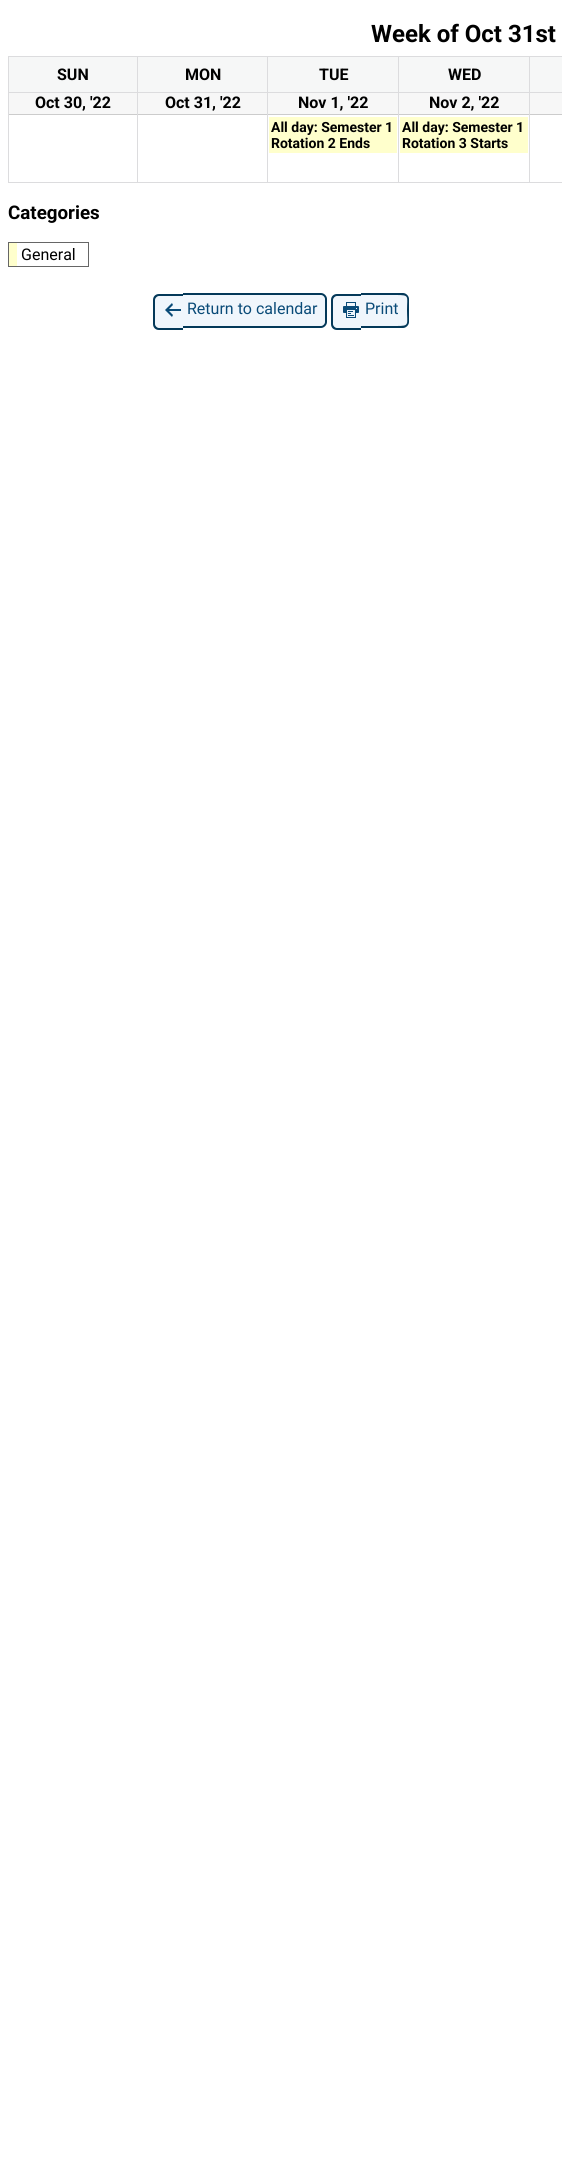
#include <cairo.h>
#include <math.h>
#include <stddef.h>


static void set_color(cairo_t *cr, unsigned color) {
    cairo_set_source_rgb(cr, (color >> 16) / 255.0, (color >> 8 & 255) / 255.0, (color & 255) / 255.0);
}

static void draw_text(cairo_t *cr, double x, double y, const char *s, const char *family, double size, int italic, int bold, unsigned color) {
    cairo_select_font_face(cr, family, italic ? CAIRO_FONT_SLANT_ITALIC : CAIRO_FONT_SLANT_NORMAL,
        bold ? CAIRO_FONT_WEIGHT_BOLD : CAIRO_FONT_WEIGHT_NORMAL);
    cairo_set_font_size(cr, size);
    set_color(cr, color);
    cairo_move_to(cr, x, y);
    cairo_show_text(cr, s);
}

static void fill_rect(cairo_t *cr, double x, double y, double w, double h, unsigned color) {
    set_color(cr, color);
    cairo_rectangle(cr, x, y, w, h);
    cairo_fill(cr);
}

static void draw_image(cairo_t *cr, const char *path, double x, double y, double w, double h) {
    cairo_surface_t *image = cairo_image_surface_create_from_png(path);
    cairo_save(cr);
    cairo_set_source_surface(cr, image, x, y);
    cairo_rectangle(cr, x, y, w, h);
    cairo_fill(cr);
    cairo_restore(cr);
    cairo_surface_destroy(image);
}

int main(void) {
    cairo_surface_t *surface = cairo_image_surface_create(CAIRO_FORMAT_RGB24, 562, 2164);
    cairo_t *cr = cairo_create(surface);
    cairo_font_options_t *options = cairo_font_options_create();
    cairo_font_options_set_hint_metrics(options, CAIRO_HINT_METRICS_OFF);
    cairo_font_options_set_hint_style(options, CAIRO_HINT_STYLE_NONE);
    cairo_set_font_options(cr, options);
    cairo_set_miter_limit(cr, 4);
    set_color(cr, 0xFFFFFF);
    cairo_paint(cr);
    draw_text(cr, 371, 42, "Week of Oct 31st", "Roboto", 24, 0, 1, 0x000000);
    fill_rect(cr, 8, 56, 554, 1, 0xDCDCDE);
    fill_rect(cr, 8, 56, 1, 127, 0xDCDCDE);
    fill_rect(cr, 9, 57, 128, 35, 0xF6F7F7);
    draw_text(cr, 57, 80, "SUN", "Roboto", 16, 0, 1, 0x000000);
    fill_rect(cr, 138, 57, 129, 35, 0xF6F7F7);
    fill_rect(cr, 529, 92, 33, 1, 0xDCDCDE);
    fill_rect(cr, 529, 182, 33, 1, 0xDCDCDE);
    fill_rect(cr, 529, 92, 1, 91, 0xDCDCDE);
    fill_rect(cr, 398, 92, 132, 1, 0xDCDCDE);
    fill_rect(cr, 398, 182, 132, 1, 0xDCDCDE);
    fill_rect(cr, 398, 92, 1, 91, 0xDCDCDE);
    fill_rect(cr, 267, 92, 132, 1, 0xDCDCDE);
    fill_rect(cr, 267, 182, 132, 1, 0xDCDCDE);
    fill_rect(cr, 267, 92, 1, 91, 0xDCDCDE);
    fill_rect(cr, 137, 92, 131, 1, 0xDCDCDE);
    fill_rect(cr, 137, 182, 131, 1, 0xDCDCDE);
    fill_rect(cr, 137, 92, 1, 91, 0xDCDCDE);
    fill_rect(cr, 8, 92, 130, 1, 0xDCDCDE);
    fill_rect(cr, 137, 56, 1, 37, 0xDCDCDE);
    draw_text(cr, 185, 80, "MON", "Roboto", 16, 0, 1, 0x000000);
    fill_rect(cr, 268, 57, 130, 35, 0xF6F7F7);
    fill_rect(cr, 267, 56, 1, 37, 0xDCDCDE);
    draw_text(cr, 319, 80, "TUE", "Roboto", 16, 0, 1, 0x000000);
    fill_rect(cr, 399, 57, 130, 35, 0xF6F7F7);
    fill_rect(cr, 398, 56, 1, 37, 0xDCDCDE);
    draw_text(cr, 448, 80, "WED", "Roboto", 16, 0, 1, 0x000000);
    fill_rect(cr, 530, 57, 32, 35, 0xF6F7F7);
    fill_rect(cr, 529, 56, 1, 37, 0xDCDCDE);
    fill_rect(cr, 8, 182, 130, 1, 0xDCDCDE);
    fill_rect(cr, 9, 93, 128, 21, 0xF7F7F7);
    fill_rect(cr, 9, 114, 128, 1, 0xCCCCCC);
    draw_text(cr, 35, 108, "Oct 30, '22", "Roboto", 16, 0, 1, 0x000000);
    fill_rect(cr, 138, 93, 129, 21, 0xF7F7F7);
    fill_rect(cr, 138, 114, 129, 1, 0xCCCCCC);
    draw_text(cr, 165, 108, "Oct 31, '22", "Roboto", 16, 0, 1, 0x000000);
    fill_rect(cr, 268, 93, 130, 21, 0xF7F7F7);
    fill_rect(cr, 268, 114, 130, 1, 0xCCCCCC);
    draw_text(cr, 298, 108, "Nov 1, '22", "Roboto", 16, 0, 1, 0x000000);
    fill_rect(cr, 269, 117, 128, 36, 0xFFFFCC);
    draw_text(cr, 271, 132, "All day: Semester 1", "Roboto", 14, 0, 1, 0x000000);
    draw_text(cr, 271, 148, "Rotation 2 Ends", "Roboto", 14, 0, 1, 0x000000);
    fill_rect(cr, 399, 93, 130, 21, 0xF7F7F7);
    fill_rect(cr, 399, 114, 130, 1, 0xCCCCCC);
    draw_text(cr, 429, 108, "Nov 2, '22", "Roboto", 16, 0, 1, 0x000000);
    fill_rect(cr, 400, 117, 128, 36, 0xFFFFCC);
    draw_text(cr, 402, 132, "All day: Semester 1", "Roboto", 14, 0, 1, 0x000000);
    draw_text(cr, 402, 148, "Rotation 3 Starts", "Roboto", 14, 0, 1, 0x000000);
    fill_rect(cr, 530, 93, 32, 21, 0xF7F7F7);
    fill_rect(cr, 530, 114, 32, 1, 0xCCCCCC);
    draw_text(cr, 8, 219, "Categories", "Roboto", 18.75, 0, 1, 0x000000);
    cairo_rectangle(cr, 8.5, 242.5, 80, 24);
    set_color(cr, 0x666666);
    cairo_set_line_width(cr, 1);
    cairo_stroke(cr);
    fill_rect(cr, 9, 243, 8, 23, 0xFFFFCC);
    draw_text(cr, 21, 260, "General", "Roboto", 16, 0, 0, 0x000000);
    set_color(cr, 0xF0F6FC);
    cairo_new_path(cr);
    cairo_move_to(cr, 159, 294);
    cairo_line_to(cr, 183, 294);
    cairo_line_to(cr, 183, 330);
    cairo_line_to(cr, 159, 330);
    cairo_curve_to(cr, 155.5, 330, 153, 327.5, 153, 324);
    cairo_line_to(cr, 153, 300);
    cairo_curve_to(cr, 153, 296.5, 155.5, 294, 159, 294);
    cairo_close_path(cr);
    cairo_fill(cr);
    set_color(cr, 0x043959);
    cairo_set_fill_rule(cr, CAIRO_FILL_RULE_EVEN_ODD);
    cairo_new_path(cr);
    cairo_move_to(cr, 159, 294);
    cairo_line_to(cr, 183, 294);
    cairo_line_to(cr, 183, 330);
    cairo_line_to(cr, 159, 330);
    cairo_curve_to(cr, 155.5, 330, 153, 327.5, 153, 324);
    cairo_line_to(cr, 153, 300);
    cairo_curve_to(cr, 153, 296.5, 155.5, 294, 159, 294);
    cairo_close_path(cr);
    cairo_move_to(cr, 159, 296);
    cairo_line_to(cr, 183, 296);
    cairo_line_to(cr, 183, 328);
    cairo_line_to(cr, 159, 328);
    cairo_curve_to(cr, 157, 328, 155, 326, 155, 324);
    cairo_line_to(cr, 155, 300);
    cairo_curve_to(cr, 155, 298, 157, 296, 159, 296);
    cairo_close_path(cr);
    cairo_fill(cr);
    set_color(cr, 0xF0F6FC);
    cairo_new_path(cr);
    cairo_move_to(cr, 183, 293);
    cairo_line_to(cr, 321, 293);
    cairo_curve_to(cr, 324.5, 293, 327, 295.5, 327, 299);
    cairo_line_to(cr, 327, 322);
    cairo_curve_to(cr, 327, 325.5, 324.5, 328, 321, 328);
    cairo_line_to(cr, 183, 328);
    cairo_close_path(cr);
    cairo_fill(cr);
    set_color(cr, 0x043959);
    cairo_new_path(cr);
    cairo_move_to(cr, 183, 293);
    cairo_line_to(cr, 321, 293);
    cairo_curve_to(cr, 324, 293, 327, 296, 327, 299);
    cairo_line_to(cr, 327, 322);
    cairo_curve_to(cr, 327, 325, 324, 328, 321, 328);
    cairo_line_to(cr, 183, 328);
    cairo_close_path(cr);
    cairo_move_to(cr, 183, 295);
    cairo_line_to(cr, 321, 295);
    cairo_curve_to(cr, 323, 295, 325, 297, 325, 299);
    cairo_line_to(cr, 325, 322);
    cairo_curve_to(cr, 325, 324, 323, 326, 321, 326);
    cairo_line_to(cr, 183, 326);
    cairo_close_path(cr);
    cairo_fill(cr);
    draw_image(cr, "assets/img1.png", 165, 303, 16, 14);
    draw_text(cr, 187, 314, "Return to calendar", "Roboto", 16, 0, 0, 0x0A4B78);
    set_color(cr, 0xF0F6FC);
    cairo_new_path(cr);
    cairo_move_to(cr, 337, 294);
    cairo_line_to(cr, 361, 294);
    cairo_line_to(cr, 361, 330);
    cairo_line_to(cr, 337, 330);
    cairo_curve_to(cr, 333.5, 330, 331, 327.5, 331, 324);
    cairo_line_to(cr, 331, 300);
    cairo_curve_to(cr, 331, 296.5, 333.5, 294, 337, 294);
    cairo_close_path(cr);
    cairo_fill(cr);
    set_color(cr, 0x043959);
    cairo_new_path(cr);
    cairo_move_to(cr, 337, 294);
    cairo_line_to(cr, 361, 294);
    cairo_line_to(cr, 361, 330);
    cairo_line_to(cr, 337, 330);
    cairo_curve_to(cr, 333.5, 330, 331, 327.5, 331, 324);
    cairo_line_to(cr, 331, 300);
    cairo_curve_to(cr, 331, 296.5, 333.5, 294, 337, 294);
    cairo_close_path(cr);
    cairo_move_to(cr, 337, 296);
    cairo_line_to(cr, 361, 296);
    cairo_line_to(cr, 361, 328);
    cairo_line_to(cr, 337, 328);
    cairo_curve_to(cr, 335, 328, 333, 326, 333, 324);
    cairo_line_to(cr, 333, 300);
    cairo_curve_to(cr, 333, 298, 335, 296, 337, 296);
    cairo_close_path(cr);
    cairo_fill(cr);
    set_color(cr, 0xF0F6FC);
    cairo_new_path(cr);
    cairo_move_to(cr, 361, 293);
    cairo_line_to(cr, 403, 293);
    cairo_curve_to(cr, 406.5, 293, 409, 295.5, 409, 299);
    cairo_line_to(cr, 409, 322);
    cairo_curve_to(cr, 409, 325.5, 406.5, 328, 403, 328);
    cairo_line_to(cr, 361, 328);
    cairo_close_path(cr);
    cairo_fill(cr);
    set_color(cr, 0x043959);
    cairo_new_path(cr);
    cairo_move_to(cr, 361, 293);
    cairo_line_to(cr, 403, 293);
    cairo_curve_to(cr, 406, 293, 409, 296, 409, 299);
    cairo_line_to(cr, 409, 322);
    cairo_curve_to(cr, 409, 325, 406, 328, 403, 328);
    cairo_line_to(cr, 361, 328);
    cairo_close_path(cr);
    cairo_move_to(cr, 361, 295);
    cairo_line_to(cr, 396, 295);
    cairo_curve_to(cr, 410, 295, 407, 296, 407, 310);
    cairo_curve_to(cr, 407, 325, 410, 326, 396, 326);
    cairo_line_to(cr, 361, 326);
    cairo_close_path(cr);
    cairo_fill(cr);
    draw_image(cr, "assets/img2.png", 343, 302, 16, 16);
    draw_text(cr, 365, 314, "Print", "Roboto", 16, 0, 0, 0x0A4B78);
    cairo_surface_write_to_png(surface, "output.png");
    cairo_font_options_destroy(options);
    cairo_destroy(cr);
    cairo_surface_destroy(surface);
    return 0;
}
